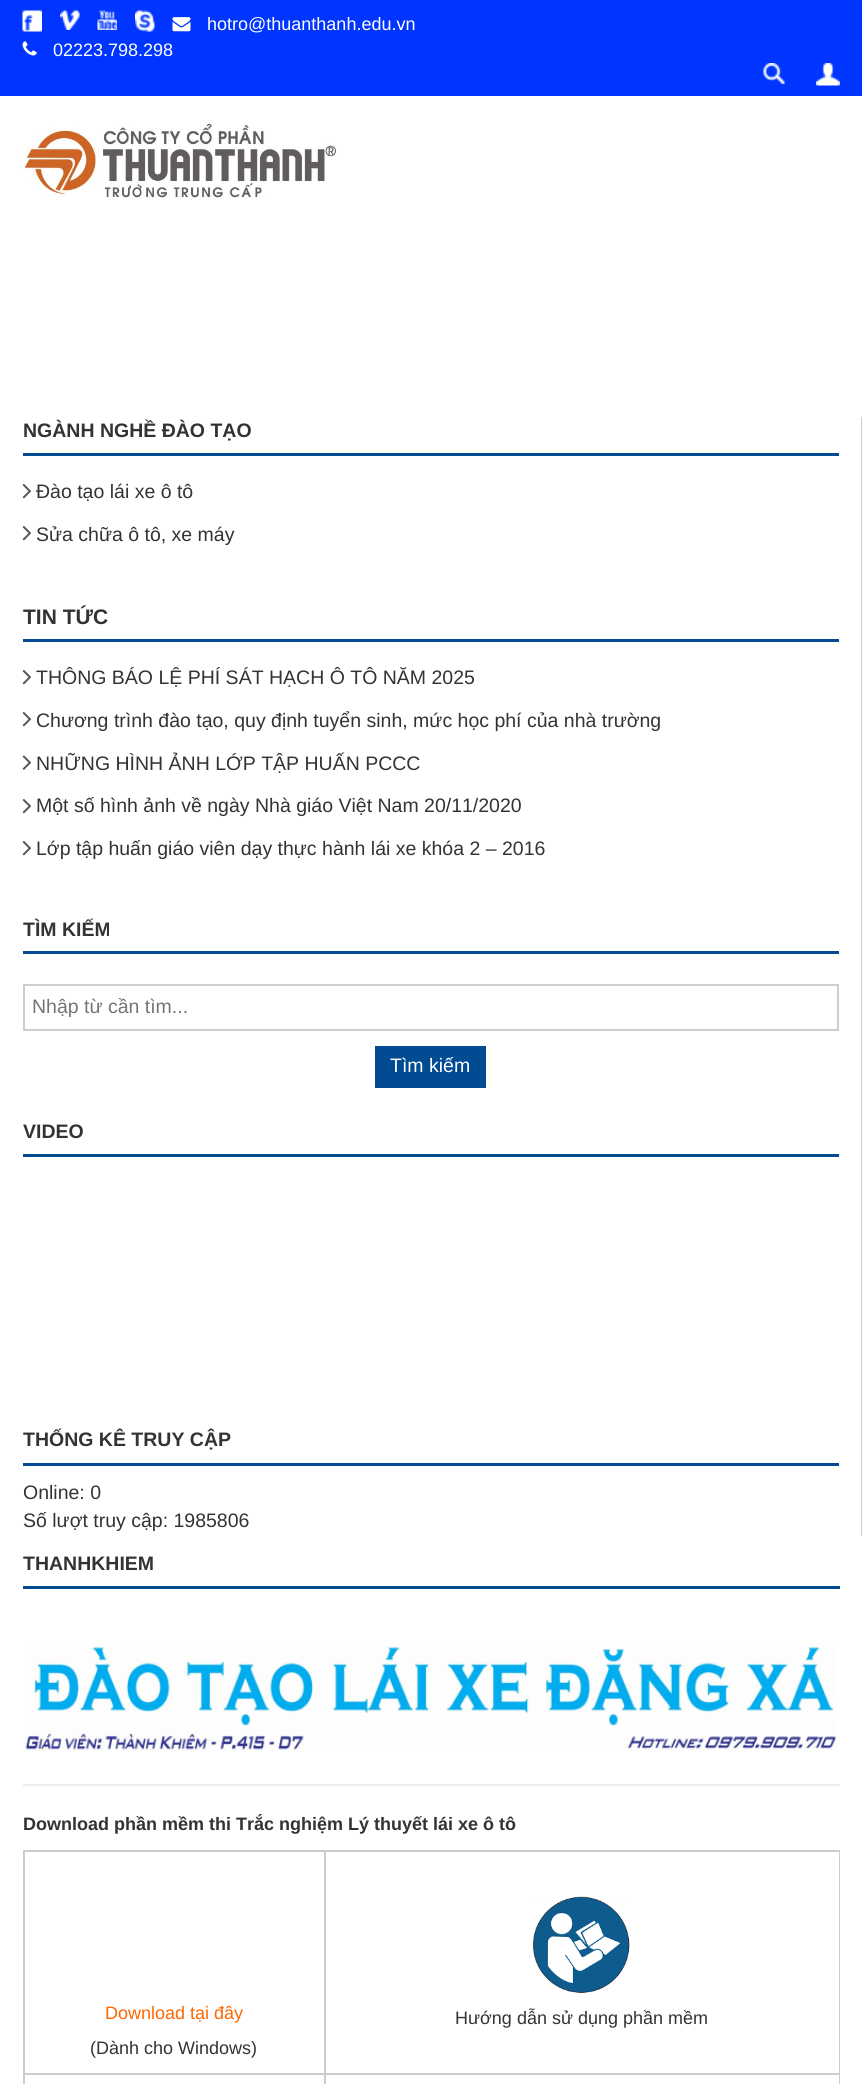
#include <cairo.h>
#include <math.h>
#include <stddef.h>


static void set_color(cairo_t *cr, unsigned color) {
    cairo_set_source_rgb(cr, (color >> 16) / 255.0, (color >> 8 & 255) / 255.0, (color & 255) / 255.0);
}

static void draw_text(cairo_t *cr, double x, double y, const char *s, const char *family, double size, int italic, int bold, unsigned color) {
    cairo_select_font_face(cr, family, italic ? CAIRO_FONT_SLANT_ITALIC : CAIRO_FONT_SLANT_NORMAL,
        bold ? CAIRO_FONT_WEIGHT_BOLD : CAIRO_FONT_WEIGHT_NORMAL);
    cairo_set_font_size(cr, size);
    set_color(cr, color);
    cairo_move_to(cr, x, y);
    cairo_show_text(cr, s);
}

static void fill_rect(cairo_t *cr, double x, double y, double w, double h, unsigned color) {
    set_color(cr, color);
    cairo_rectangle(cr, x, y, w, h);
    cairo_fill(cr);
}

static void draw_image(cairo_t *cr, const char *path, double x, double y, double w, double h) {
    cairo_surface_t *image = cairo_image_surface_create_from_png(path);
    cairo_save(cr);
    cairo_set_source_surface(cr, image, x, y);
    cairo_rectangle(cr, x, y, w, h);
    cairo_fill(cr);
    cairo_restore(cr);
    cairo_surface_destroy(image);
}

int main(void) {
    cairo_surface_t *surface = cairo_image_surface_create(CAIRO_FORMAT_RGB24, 862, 2084);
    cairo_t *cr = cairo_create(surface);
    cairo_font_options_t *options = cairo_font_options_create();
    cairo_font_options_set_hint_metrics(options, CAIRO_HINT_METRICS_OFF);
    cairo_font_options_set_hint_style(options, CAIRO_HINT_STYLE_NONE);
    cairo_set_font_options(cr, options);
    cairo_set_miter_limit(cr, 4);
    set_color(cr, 0xFFFFFF);
    cairo_paint(cr);
    fill_rect(cr, 0, 0, 862, 96, 0x0035FF);
    draw_image(cr, "assets/img1.png", 22, 10, 20, 22);
    draw_image(cr, "assets/img2.png", 60, 10, 20, 20);
    draw_image(cr, "assets/img3.png", 97, 10, 20, 20);
    draw_image(cr, "assets/img4.png", 135, 10, 20, 22);
    draw_image(cr, "assets/img5.png", 172, 17, 19, 15);
    draw_text(cr, 207, 30, "hotro@thuanthanh.edu.vn", "Liberation Sans", 18, 0, 0, 0xFFFFFF);
    draw_image(cr, "assets/img6.png", 22, 41, 15, 15);
    draw_text(cr, 53, 56, "02223.798.298", "Liberation Sans", 18, 0, 0, 0xFFFFFF);
    draw_image(cr, "assets/img7.png", 763, 63, 22, 21);
    draw_image(cr, "assets/img8.png", 816, 63, 24, 23);
    draw_image(cr, "assets/img9.png", 22, 123, 315, 77);
    fill_rect(cr, 861, 417, 1, 1119, 0xCECECE);
    fill_rect(cr, 23, 453, 816, 3, 0x014B92);
    draw_text(cr, 23, 437, "NGÀNH NGHỀ ĐÀO TẠO", "Liberation Sans", 19.5, 0, 1, 0x333333);
    draw_image(cr, "assets/img10.png", 22, 484, 10, 15);
    draw_text(cr, 36, 498, "Đào tạo lái xe ô tô", "Liberation Sans", 19.5, 0, 0, 0x333333);
    draw_image(cr, "assets/img10.png", 22, 526, 10, 15);
    draw_text(cr, 36, 541, "Sửa chữa ô tô, xe máy", "Liberation Sans", 19.5, 0, 0, 0x333333);
    fill_rect(cr, 23, 639, 816, 3, 0x014B92);
    draw_text(cr, 23, 624, "TIN TỨC", "Liberation Sans", 21, 0, 1, 0x333333);
    draw_image(cr, "assets/img10.png", 22, 670, 10, 15);
    draw_text(cr, 36, 684, "THÔNG BÁO LỆ PHÍ SÁT HẠCH Ô TÔ NĂM 2025", "Liberation Sans", 19.5, 0, 0, 0x333333);
    draw_image(cr, "assets/img10.png", 22, 712, 10, 15);
    draw_text(cr, 36, 727, "Chương trình đào tạo, quy định tuyển sinh, mức học phí của nhà trường", "Liberation Sans", 19.5, 0, 0, 0x333333);
    draw_image(cr, "assets/img11.png", 22, 755, 10, 15);
    draw_text(cr, 36, 770, "NHỮNG HÌNH ẢNH LỚP TẬP HUẤN PCCC", "Liberation Sans", 19.5, 0, 0, 0x333333);
    draw_image(cr, "assets/img10.png", 22, 799, 10, 15);
    draw_text(cr, 36, 812, "Một số hình ảnh về ngày Nhà giáo Việt Nam 20/11/2020", "Liberation Sans", 19.5, 0, 0, 0x333333);
    draw_image(cr, "assets/img10.png", 22, 841, 10, 15);
    draw_text(cr, 36, 855, "Lớp tập huấn giáo viên dạy thực hành lái xe khóa 2 – 2016", "Liberation Sans", 19.5, 0, 0, 0x333333);
    fill_rect(cr, 23, 951, 816, 3, 0x014B92);
    draw_text(cr, 23, 936, "TÌM KIẾM", "Liberation Sans", 19.5, 0, 1, 0x333333);
    cairo_rectangle(cr, 24, 985, 814, 45);
    set_color(cr, 0xCECECE);
    cairo_stroke(cr);
    draw_text(cr, 32, 1013, "Nhập từ cần tìm...", "Liberation Sans", 19.5, 0, 0, 0x757575);
    fill_rect(cr, 375, 1046, 111, 42, 0x014B92);
    draw_text(cr, 390, 1072, "Tìm kiếm", "Liberation Sans", 19.5, 0, 0, 0xFFFFFF);
    fill_rect(cr, 23, 1154, 816, 3, 0x014B92);
    draw_text(cr, 23, 1138, "VIDEO", "Liberation Sans", 19.5, 0, 1, 0x333333);
    fill_rect(cr, 23, 1463, 816, 3, 0x014B92);
    draw_text(cr, 23, 1446, "THỐNG KÊ TRUY CẬP", "Liberation Sans", 19.5, 0, 1, 0x333333);
    draw_text(cr, 23, 1499, "Online: 0", "Liberation Sans", 19.5, 0, 0, 0x333333);
    draw_text(cr, 23, 1527, "Số lượt truy cập: 1985806", "Liberation Sans", 19.5, 0, 0, 0x333333);
    fill_rect(cr, 23, 1586, 817, 3, 0x014B92);
    draw_text(cr, 23, 1570, "THANHKHIEM", "Liberation Sans", 19.5, 0, 1, 0x333333);
    draw_image(cr, "assets/img12.png", 25, 1646, 812, 105);
    fill_rect(cr, 23, 1784, 817, 2, 0xEEEEEE);
    draw_text(cr, 23, 1830, "Download phần mềm thi Trắc nghiệm Lý thuyết lái xe ô tô", "Liberation Sans", 18, 0, 1, 0x333333);
    fill_rect(cr, 324, 1850, 516, 2, 0xCCCCCC);
    fill_rect(cr, 324, 2073, 516, 2, 0xCCCCCC);
    fill_rect(cr, 324, 2073, 2, 11, 0xCCCCCC);
    fill_rect(cr, 23, 2073, 303, 2, 0xCCCCCC);
    fill_rect(cr, 324, 1850, 2, 225, 0xCCCCCC);
    fill_rect(cr, 23, 1850, 303, 2, 0xCCCCCC);
    fill_rect(cr, 23, 2073, 2, 11, 0xCCCCCC);
    fill_rect(cr, 23, 1850, 2, 225, 0xCCCCCC);
    draw_text(cr, 105, 2019, "Download tại đây", "Liberation Sans", 18, 0, 0, 0xFF6600);
    draw_text(cr, 90, 2054, "(Dành cho Windows)", "Liberation Sans", 18, 0, 0, 0x333333);
    fill_rect(cr, 839, 2073, 1, 11, 0xCCCCCC);
    fill_rect(cr, 839, 1850, 1, 225, 0xCCCCCC);
    draw_image(cr, "assets/img13.png", 533, 1896, 97, 97);
    draw_text(cr, 455, 2024, "Hướng dẫn sử dụng phần mềm", "Liberation Sans", 18, 0, 0, 0x333333);
    cairo_surface_write_to_png(surface, "output.png");
    cairo_font_options_destroy(options);
    cairo_destroy(cr);
    cairo_surface_destroy(surface);
    return 0;
}
